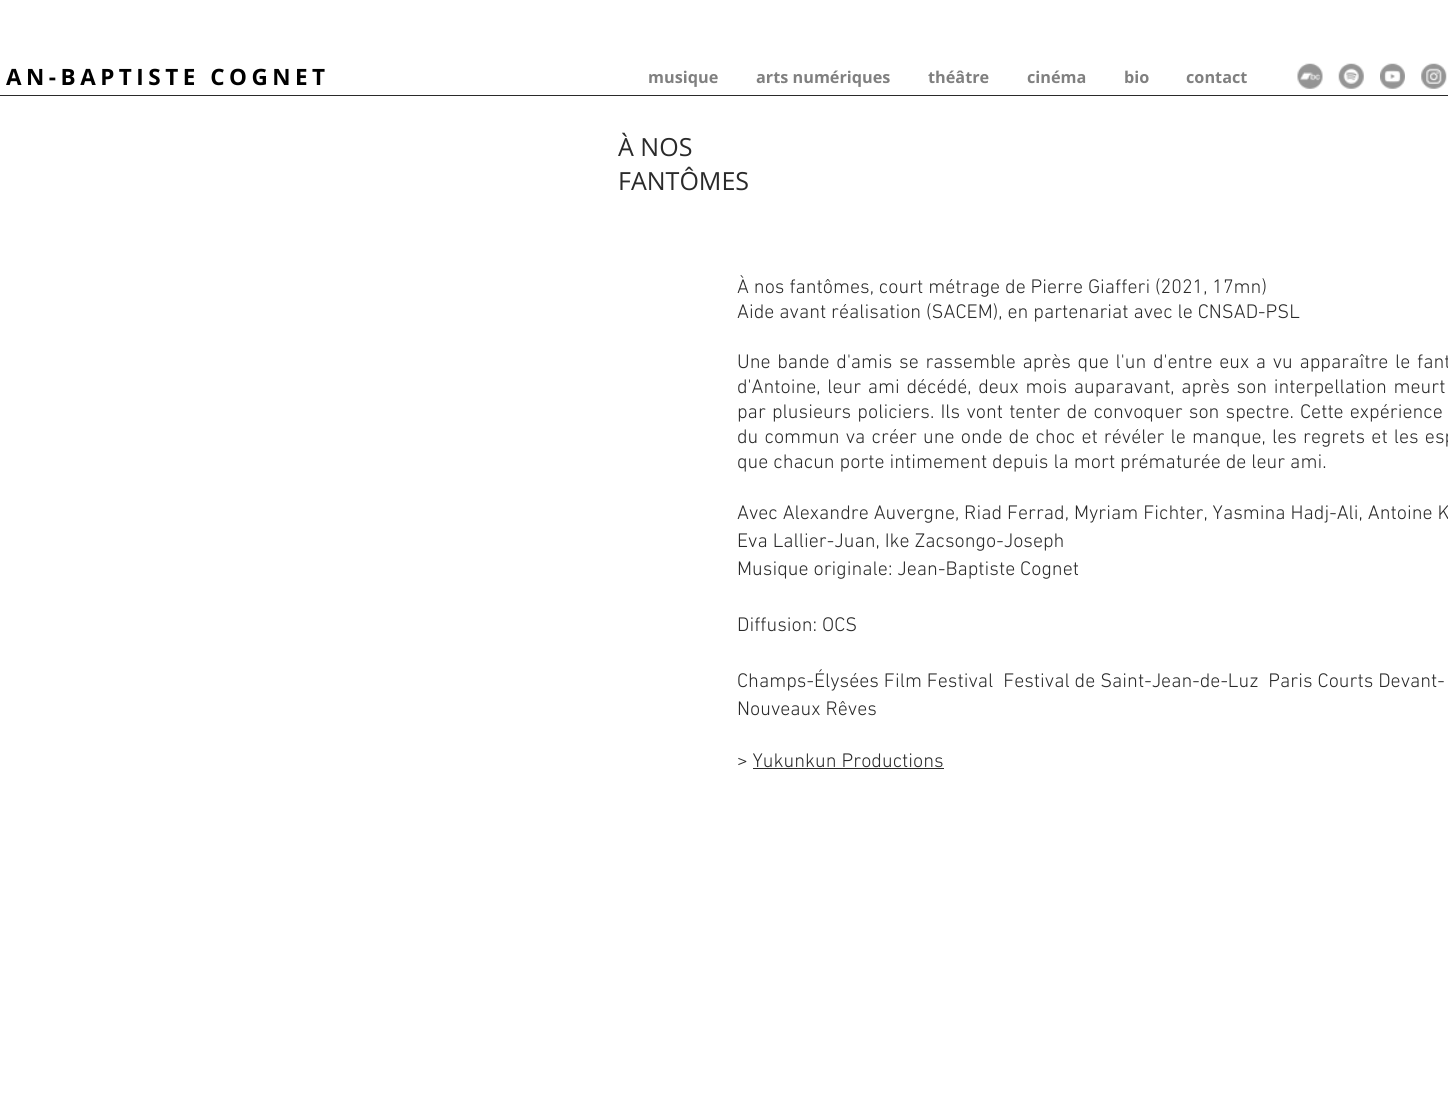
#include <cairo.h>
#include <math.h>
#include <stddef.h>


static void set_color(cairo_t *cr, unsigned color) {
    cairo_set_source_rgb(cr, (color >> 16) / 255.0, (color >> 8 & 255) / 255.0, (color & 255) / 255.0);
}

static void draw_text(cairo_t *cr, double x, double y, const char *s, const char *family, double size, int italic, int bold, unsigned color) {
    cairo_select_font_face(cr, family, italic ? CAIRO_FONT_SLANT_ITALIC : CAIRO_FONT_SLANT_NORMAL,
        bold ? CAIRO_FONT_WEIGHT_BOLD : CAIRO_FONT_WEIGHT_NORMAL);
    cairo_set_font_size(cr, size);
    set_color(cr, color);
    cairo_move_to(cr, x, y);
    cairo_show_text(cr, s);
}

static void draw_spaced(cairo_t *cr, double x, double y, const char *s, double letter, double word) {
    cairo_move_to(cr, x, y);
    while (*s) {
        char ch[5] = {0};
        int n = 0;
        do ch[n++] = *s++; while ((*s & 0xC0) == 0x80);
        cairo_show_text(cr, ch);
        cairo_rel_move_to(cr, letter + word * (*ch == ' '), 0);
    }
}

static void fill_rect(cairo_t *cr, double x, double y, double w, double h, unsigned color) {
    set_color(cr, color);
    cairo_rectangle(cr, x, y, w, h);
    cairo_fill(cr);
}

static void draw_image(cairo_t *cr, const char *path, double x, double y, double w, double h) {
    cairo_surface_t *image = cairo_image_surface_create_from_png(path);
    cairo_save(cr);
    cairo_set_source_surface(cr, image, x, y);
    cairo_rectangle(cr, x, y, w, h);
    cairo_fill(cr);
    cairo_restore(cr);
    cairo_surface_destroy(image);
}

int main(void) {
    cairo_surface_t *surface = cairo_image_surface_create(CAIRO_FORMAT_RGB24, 1448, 1101);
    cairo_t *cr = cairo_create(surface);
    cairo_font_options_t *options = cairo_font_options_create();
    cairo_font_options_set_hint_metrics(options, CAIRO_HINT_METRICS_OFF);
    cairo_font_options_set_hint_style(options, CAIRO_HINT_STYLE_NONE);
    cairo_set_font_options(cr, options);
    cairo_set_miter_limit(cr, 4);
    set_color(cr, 0xFFFFFF);
    cairo_paint(cr);
    cairo_select_font_face(cr, "Open Sans", CAIRO_FONT_SLANT_NORMAL, CAIRO_FONT_WEIGHT_BOLD);
    cairo_set_font_size(cr, 22.5);
    set_color(cr, 0x000000);
    draw_spaced(cr, 6, 85, "AN-BAPTISTE COGNET", 4.5, 0);
    draw_text(cr, 648, 83, "musique", "Open Sans", 16.25, 0, 1, 0x808080);
    draw_text(cr, 756, 83, "arts numériques", "Open Sans", 16.25, 0, 1, 0x808080);
    draw_text(cr, 928, 83, "théâtre", "Open Sans", 16.25, 0, 1, 0x808080);
    draw_text(cr, 1027, 83, "cinéma", "Open Sans", 16.25, 0, 1, 0x808080);
    draw_text(cr, 1124, 83, "bio", "Open Sans", 16.25, 0, 1, 0x808080);
    draw_text(cr, 1186, 83, "contact", "Open Sans", 16.25, 0, 1, 0x808080);
    draw_image(cr, "assets/img1.png", 1297, 63, 26, 26);
    draw_image(cr, "assets/img2.png", 1338, 63, 26, 26);
    draw_image(cr, "assets/img3.png", 1380, 63, 25, 26);
    draw_image(cr, "assets/img4.png", 1421, 63, 26, 26);
    fill_rect(cr, 0, 95, 1448, 1, 0x2A2A2A);
    draw_text(cr, 618, 156, "À NOS", "Open Sans", 25, 0, 0, 0x2A2A2A);
    draw_text(cr, 618, 190, "FANTÔMES", "Open Sans", 25, 0, 0, 0x2A2A2A);
    draw_text(cr, 737, 293, "À nos fantômes, court métrage de Pierre Giafferi (2021, 17mn)", "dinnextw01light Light", 20, 0, 0, 0x2A2A2A);
    draw_text(cr, 737, 318, "Aide avant réalisation (SACEM), en partenariat avec le CNSAD-PSL", "dinnextw01light Light", 20, 0, 0, 0x2A2A2A);
    draw_spaced(cr, 737, 368, "Une bande d'amis se rassemble après que l'un d'entre eux a vu apparaître le fant", 0, 1.75);
    draw_spaced(cr, 737, 393, "d'Antoine, leur ami décédé, deux mois auparavant, après son interpellation meurt", 0, 1.75);
    draw_spaced(cr, 737, 418, "par plusieurs policiers. Ils vont tenter de convoquer son spectre. Cette expérience", 0, 1.25);
    draw_spaced(cr, 737, 443, "du commun va créer une onde de choc et révéler le manque, les regrets et les esp", 0, 1.25);
    draw_text(cr, 737, 468, "que chacun porte intimement depuis la mort prématurée de leur ami.", "dinnextw01light Light", 20, 0, 0, 0x2A2A2A);
    draw_text(cr, 737, 519, "Avec Alexandre Auvergne, Riad Ferrad, Myriam Fichter, Yasmina Hadj-Ali, Antoine K", "dinnextw01light Light", 20, 0, 0, 0x2A2A2A);
    draw_text(cr, 737, 547, "Eva Lallier-Juan, Ike Zacsongo-Joseph", "dinnextw01light Light", 20, 0, 0, 0x2A2A2A);
    draw_text(cr, 737, 575, "Musique originale: Jean-Baptiste Cognet", "dinnextw01light Light", 20, 0, 0, 0x2A2A2A);
    draw_text(cr, 737, 631, "Diffusion: OCS", "dinnextw01light Light", 20, 0, 0, 0x2A2A2A);
    draw_text(cr, 737, 687, "Champs-Élysées Film Festival  Festival de Saint-Jean-de-Luz  Paris Courts Devant-", "dinnextw01light Light", 20, 0, 0, 0x2A2A2A);
    draw_text(cr, 737, 715, "Nouveaux Rêves", "dinnextw01light Light", 20, 0, 0, 0x2A2A2A);
    draw_text(cr, 737, 767, "> Yukunkun Productions", "dinnextw01light Light", 20, 0, 0, 0x2A2A2A);
    fill_rect(cr, 753, 768, 191, 1, 0x2A2A2A);
    cairo_surface_write_to_png(surface, "output.png");
    cairo_font_options_destroy(options);
    cairo_destroy(cr);
    cairo_surface_destroy(surface);
    return 0;
}
